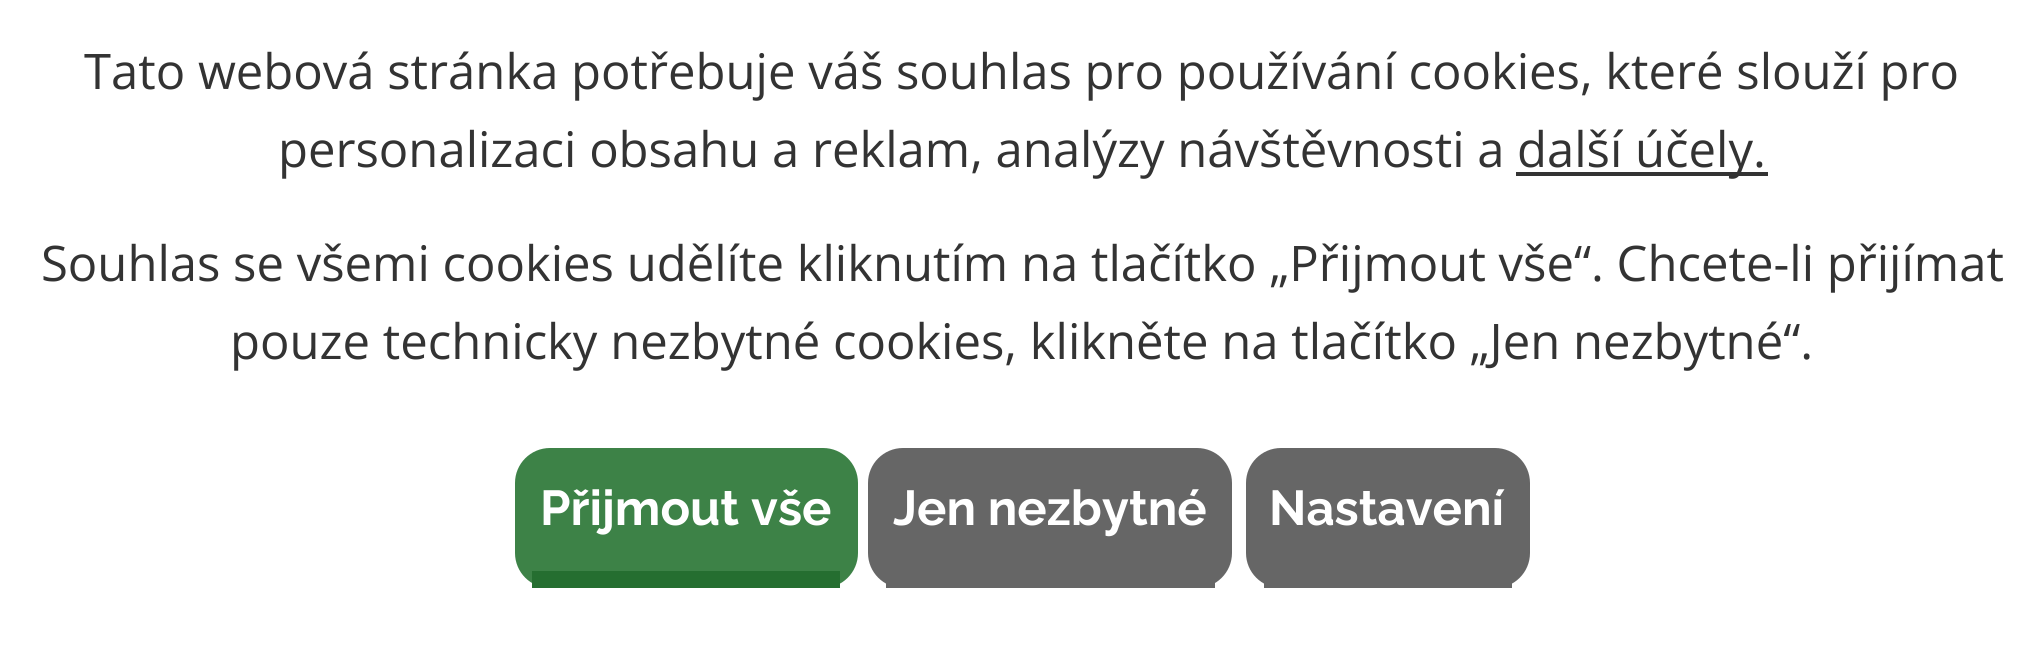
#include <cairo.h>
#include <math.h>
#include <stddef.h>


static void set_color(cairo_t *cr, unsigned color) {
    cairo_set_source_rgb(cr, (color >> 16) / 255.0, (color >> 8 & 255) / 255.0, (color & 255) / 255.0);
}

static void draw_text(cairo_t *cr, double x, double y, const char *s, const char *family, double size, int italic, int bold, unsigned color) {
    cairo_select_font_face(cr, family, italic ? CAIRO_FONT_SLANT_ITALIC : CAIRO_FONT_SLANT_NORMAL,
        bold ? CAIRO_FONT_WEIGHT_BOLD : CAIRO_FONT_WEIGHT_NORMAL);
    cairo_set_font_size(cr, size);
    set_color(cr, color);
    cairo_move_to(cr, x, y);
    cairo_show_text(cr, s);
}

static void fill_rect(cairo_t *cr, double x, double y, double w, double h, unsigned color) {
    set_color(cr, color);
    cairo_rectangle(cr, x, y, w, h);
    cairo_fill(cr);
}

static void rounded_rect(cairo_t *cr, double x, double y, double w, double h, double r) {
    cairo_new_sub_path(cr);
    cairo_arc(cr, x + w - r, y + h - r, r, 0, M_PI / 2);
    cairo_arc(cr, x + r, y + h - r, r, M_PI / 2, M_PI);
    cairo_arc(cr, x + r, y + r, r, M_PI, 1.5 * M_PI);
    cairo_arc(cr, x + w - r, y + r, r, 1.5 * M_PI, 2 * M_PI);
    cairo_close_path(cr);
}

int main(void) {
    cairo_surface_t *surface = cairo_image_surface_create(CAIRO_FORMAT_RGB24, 2044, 652);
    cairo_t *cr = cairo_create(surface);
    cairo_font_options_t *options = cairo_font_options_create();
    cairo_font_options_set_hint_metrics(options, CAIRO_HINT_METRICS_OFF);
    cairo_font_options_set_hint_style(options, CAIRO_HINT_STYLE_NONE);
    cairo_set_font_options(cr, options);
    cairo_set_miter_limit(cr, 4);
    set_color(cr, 0xFFFFFF);
    cairo_paint(cr);
    draw_text(cr, 84, 89, "Tato webová stránka potřebuje váš souhlas pro používání cookies, které slouží pro", "Open Sans", 49, 0, 0, 0x333333);
    draw_text(cr, 278, 167, "personalizaci obsahu a reklam, analýzy návštěvnosti a", "Open Sans", 49, 0, 0, 0x333333);
    fill_rect(cr, 1516, 172, 252, 4, 0x333333);
    draw_text(cr, 1517, 167, "další účely.", "Open Sans", 49, 0, 0, 0x333333);
    draw_text(cr, 41, 281, "Souhlas se všemi cookies udělíte kliknutím na tlačítko „Přijmout vše“. Chcete-li přijímat", "Open Sans", 49, 0, 0, 0x333333);
    draw_text(cr, 230, 359, "pouze technicky nezbytné cookies, klikněte na tlačítko „Jen nezbytné“.", "Open Sans", 49, 0, 0, 0x333333);
    set_color(cr, 0x3D8247);
    rounded_rect(cr, 515, 448, 343, 140, 35);
    cairo_fill(cr);
    fill_rect(cr, 532, 571, 308, 17, 0x256E30);
    draw_text(cr, 540, 525, "Přijmout vše", "Raleway", 49, 0, 1, 0xFFFFFF);
    set_color(cr, 0x666666);
    rounded_rect(cr, 868, 448, 364, 140, 35);
    cairo_fill(cr);
    fill_rect(cr, 886, 583, 329, 5, 0x666666);
    draw_text(cr, 893, 525, "Jen nezbytné", "Raleway", 49, 0, 1, 0xFFFFFF);
    set_color(cr, 0x666666);
    rounded_rect(cr, 1246, 448, 284, 140, 35);
    cairo_fill(cr);
    fill_rect(cr, 1264, 583, 248, 5, 0x666666);
    draw_text(cr, 1269, 525, "Nastavení", "Raleway", 49, 0, 1, 0xFFFFFF);
    cairo_surface_write_to_png(surface, "output.png");
    cairo_font_options_destroy(options);
    cairo_destroy(cr);
    cairo_surface_destroy(surface);
    return 0;
}
